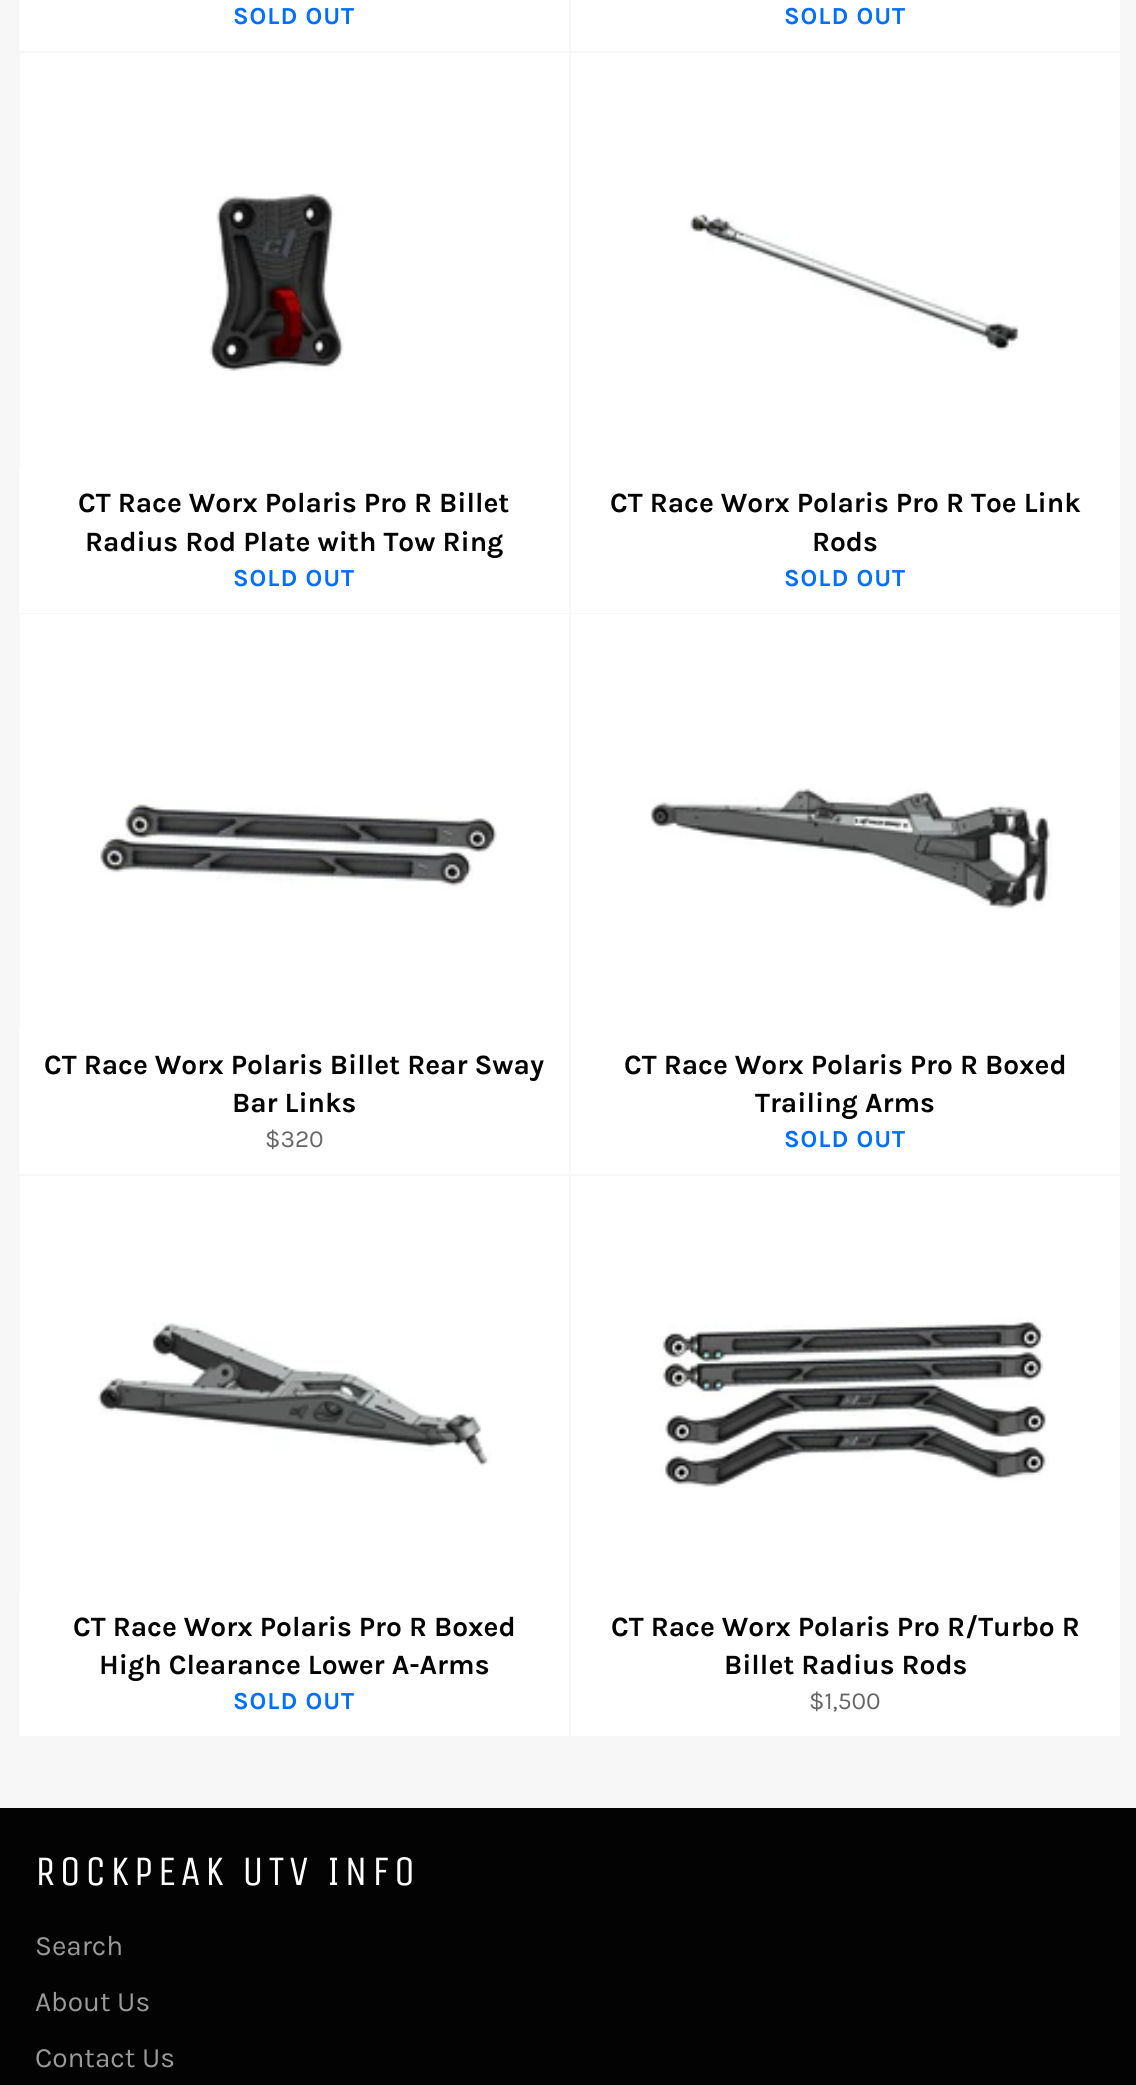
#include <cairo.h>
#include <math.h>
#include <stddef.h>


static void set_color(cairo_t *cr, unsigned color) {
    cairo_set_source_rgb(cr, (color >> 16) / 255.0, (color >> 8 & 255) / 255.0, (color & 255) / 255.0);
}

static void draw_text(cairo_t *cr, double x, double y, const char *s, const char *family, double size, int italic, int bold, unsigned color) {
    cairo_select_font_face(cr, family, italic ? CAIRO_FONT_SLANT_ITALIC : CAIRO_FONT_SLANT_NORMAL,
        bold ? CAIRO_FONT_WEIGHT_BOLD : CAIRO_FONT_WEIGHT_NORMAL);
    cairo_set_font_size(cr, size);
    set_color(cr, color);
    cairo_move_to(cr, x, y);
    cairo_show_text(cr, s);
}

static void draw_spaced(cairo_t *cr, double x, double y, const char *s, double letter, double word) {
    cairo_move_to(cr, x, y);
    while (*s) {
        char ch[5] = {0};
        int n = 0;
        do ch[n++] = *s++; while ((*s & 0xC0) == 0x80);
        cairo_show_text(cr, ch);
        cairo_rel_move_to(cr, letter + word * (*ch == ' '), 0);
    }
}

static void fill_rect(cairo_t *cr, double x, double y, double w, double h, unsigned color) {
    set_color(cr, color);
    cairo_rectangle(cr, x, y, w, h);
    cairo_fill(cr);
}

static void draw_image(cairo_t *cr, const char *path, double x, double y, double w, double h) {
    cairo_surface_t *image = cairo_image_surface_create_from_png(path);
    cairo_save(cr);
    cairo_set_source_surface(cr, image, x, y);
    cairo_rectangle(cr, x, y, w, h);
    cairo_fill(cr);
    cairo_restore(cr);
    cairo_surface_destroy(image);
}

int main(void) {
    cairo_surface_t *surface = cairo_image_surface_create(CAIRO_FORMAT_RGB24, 1136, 2085);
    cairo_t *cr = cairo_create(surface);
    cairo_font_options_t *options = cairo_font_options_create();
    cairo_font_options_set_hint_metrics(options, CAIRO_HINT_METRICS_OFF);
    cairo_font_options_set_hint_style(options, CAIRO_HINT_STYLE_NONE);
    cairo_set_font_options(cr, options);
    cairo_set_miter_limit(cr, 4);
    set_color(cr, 0xF7F7F7);
    cairo_paint(cr);
    fill_rect(cr, 19, 0, 550, 51, 0xFFFFFF);
    cairo_select_font_face(cr, "Karla", CAIRO_FONT_SLANT_NORMAL, CAIRO_FONT_WEIGHT_BOLD);
    cairo_set_font_size(cr, 24.5);
    set_color(cr, 0x006EFF);
    draw_spaced(cr, 233, 24, "SOLD OUT", 1, 0);
    fill_rect(cr, 571, 0, 549, 51, 0xFFFFFF);
    set_color(cr, 0x006EFF);
    draw_spaced(cr, 784, 24, "SOLD OUT", 1, 0);
    fill_rect(cr, 20, 53, 549, 414, 0xFFFFFF);
    draw_image(cr, "assets/img1.png", 209, 193, 136, 178);
    fill_rect(cr, 19, 467, 550, 146, 0xFFFFFF);
    draw_text(cr, 78, 512, "CT Race Worx Polaris Pro R Billet", "Karla", 28, 0, 1, 0x030303);
    draw_text(cr, 85, 551, "Radius Rod Plate with Tow Ring", "Karla", 28, 0, 1, 0x030303);
    cairo_set_font_size(cr, 24.5);
    set_color(cr, 0x006EFF);
    draw_spaced(cr, 233, 586, "SOLD OUT", 1, 0);
    fill_rect(cr, 571, 53, 549, 560, 0xFFFFFF);
    draw_image(cr, "assets/img2.png", 687, 214, 332, 138);
    draw_text(cr, 610, 512, "CT Race Worx Polaris Pro R Toe Link", "Karla", 28, 0, 1, 0x030303);
    draw_text(cr, 812, 551, "Rods", "Karla", 28, 0, 1, 0x030303);
    cairo_set_font_size(cr, 24.5);
    set_color(cr, 0x006EFF);
    draw_spaced(cr, 784, 586, "SOLD OUT", 1, 0);
    fill_rect(cr, 20, 614, 549, 415, 0xFFFFFF);
    draw_image(cr, "assets/img3.png", 100, 799, 398, 90);
    fill_rect(cr, 19, 1029, 550, 145, 0xFFFFFF);
    draw_text(cr, 44, 1074, "CT Race Worx Polaris Billet Rear Sway", "Karla", 28, 0, 1, 0x030303);
    draw_text(cr, 232, 1112, "Bar Links", "Karla", 28, 0, 1, 0x030303);
    draw_text(cr, 265, 1147, "$320", "Karla", 24.5, 0, 0, 0x666666);
    fill_rect(cr, 571, 614, 549, 560, 0xFFFFFF);
    draw_image(cr, "assets/img4.png", 649, 788, 403, 121);
    draw_text(cr, 624, 1074, "CT Race Worx Polaris Pro R Boxed", "Karla", 28, 0, 1, 0x030303);
    draw_text(cr, 755, 1112, "Trailing Arms", "Karla", 28, 0, 1, 0x030303);
    cairo_set_font_size(cr, 24.5);
    set_color(cr, 0x006EFF);
    draw_spaced(cr, 784, 1147, "SOLD OUT", 1, 0);
    fill_rect(cr, 20, 1176, 549, 415, 0xFFFFFF);
    draw_image(cr, "assets/img5.png", 98, 1323, 393, 146);
    fill_rect(cr, 19, 1591, 550, 145, 0xFFFFFF);
    draw_text(cr, 73, 1636, "CT Race Worx Polaris Pro R Boxed", "Karla", 28, 0, 1, 0x030303);
    draw_text(cr, 99, 1674, "High Clearance Lower A-Arms", "Karla", 28, 0, 1, 0x030303);
    cairo_set_font_size(cr, 24.5);
    set_color(cr, 0x006EFF);
    draw_spaced(cr, 233, 1709, "SOLD OUT", 1, 0);
    fill_rect(cr, 571, 1176, 549, 560, 0xFFFFFF);
    draw_image(cr, "assets/img6.png", 659, 1317, 390, 171);
    draw_text(cr, 611, 1636, "CT Race Worx Polaris Pro R/Turbo R", "Karla", 28, 0, 1, 0x030303);
    draw_text(cr, 724, 1674, "Billet Radius Rods", "Karla", 28, 0, 1, 0x030303);
    draw_text(cr, 809, 1709, "$1,500", "Karla", 24.5, 0, 0, 0x666666);
    fill_rect(cr, 0, 1808, 1136, 277, 0x030303);
    cairo_select_font_face(cr, "Unica One", CAIRO_FONT_SLANT_NORMAL, CAIRO_FONT_WEIGHT_NORMAL);
    cairo_set_font_size(cr, 42);
    set_color(cr, 0xFFFFFF);
    draw_spaced(cr, 35, 1885, "ROCKPEAK UTV INFO", 4.25, 0);
    draw_text(cr, 35, 1955, "Search", "Karla", 28, 0, 0, 0x9A9A9A);
    draw_text(cr, 35, 2011, "About Us", "Karla", 28, 0, 0, 0x9A9A9A);
    draw_text(cr, 35, 2067, "Contact Us", "Karla", 28, 0, 0, 0x9A9A9A);
    cairo_surface_write_to_png(surface, "output.png");
    cairo_font_options_destroy(options);
    cairo_destroy(cr);
    cairo_surface_destroy(surface);
    return 0;
}
